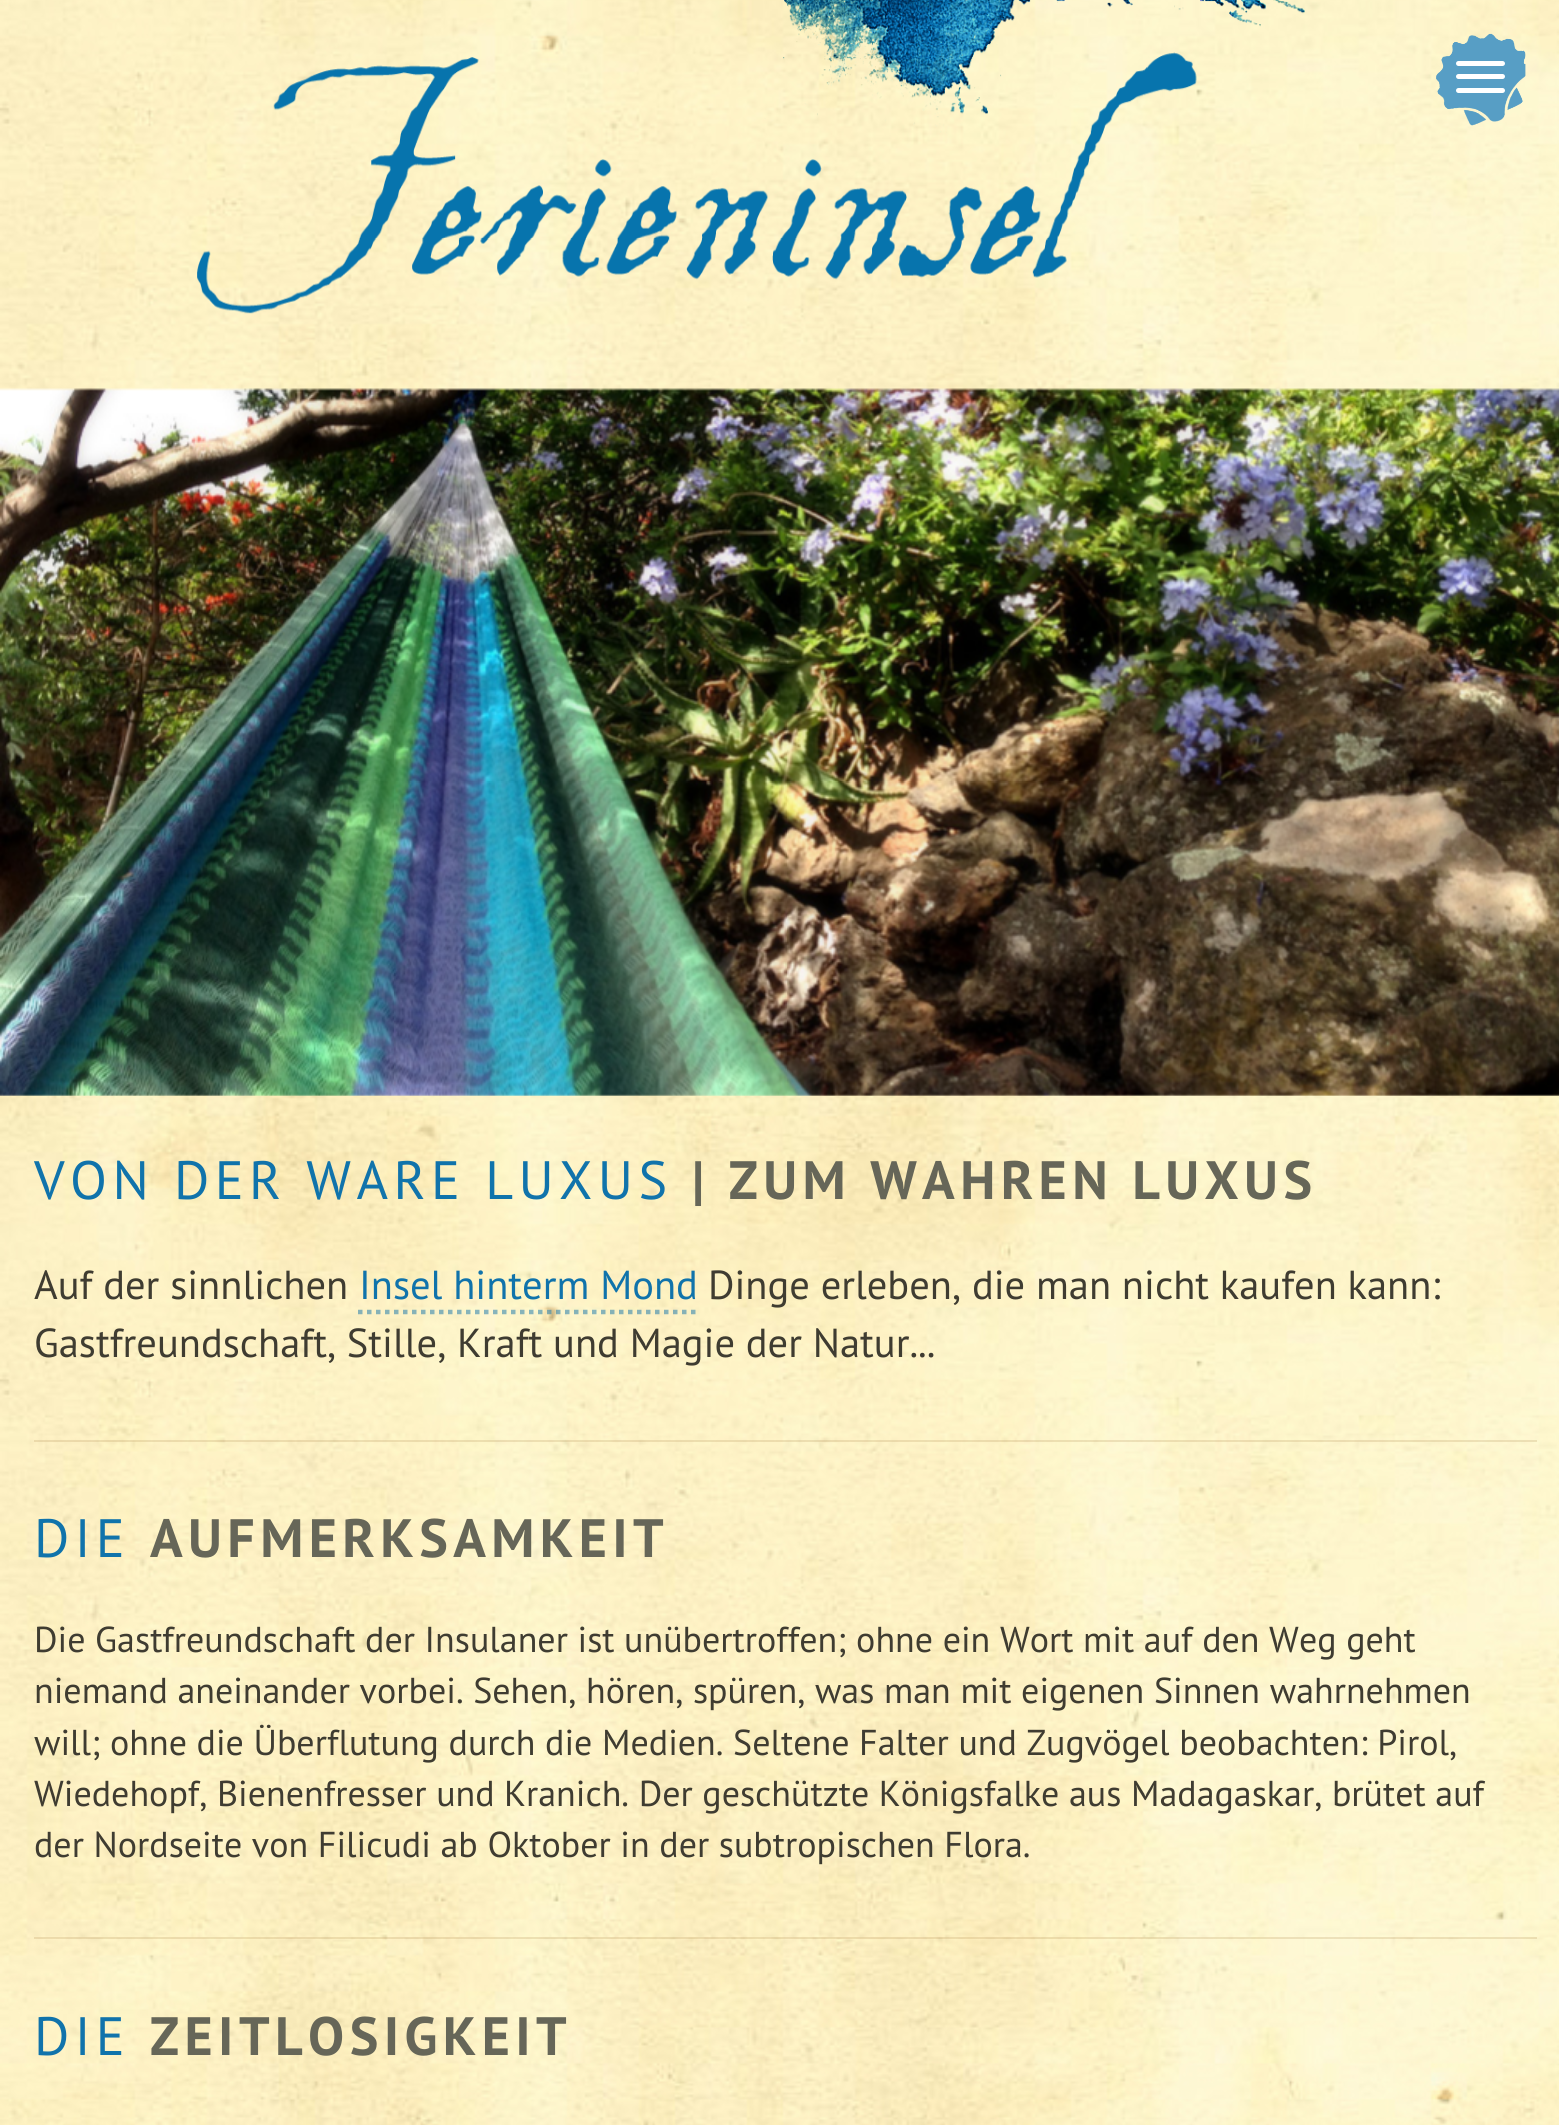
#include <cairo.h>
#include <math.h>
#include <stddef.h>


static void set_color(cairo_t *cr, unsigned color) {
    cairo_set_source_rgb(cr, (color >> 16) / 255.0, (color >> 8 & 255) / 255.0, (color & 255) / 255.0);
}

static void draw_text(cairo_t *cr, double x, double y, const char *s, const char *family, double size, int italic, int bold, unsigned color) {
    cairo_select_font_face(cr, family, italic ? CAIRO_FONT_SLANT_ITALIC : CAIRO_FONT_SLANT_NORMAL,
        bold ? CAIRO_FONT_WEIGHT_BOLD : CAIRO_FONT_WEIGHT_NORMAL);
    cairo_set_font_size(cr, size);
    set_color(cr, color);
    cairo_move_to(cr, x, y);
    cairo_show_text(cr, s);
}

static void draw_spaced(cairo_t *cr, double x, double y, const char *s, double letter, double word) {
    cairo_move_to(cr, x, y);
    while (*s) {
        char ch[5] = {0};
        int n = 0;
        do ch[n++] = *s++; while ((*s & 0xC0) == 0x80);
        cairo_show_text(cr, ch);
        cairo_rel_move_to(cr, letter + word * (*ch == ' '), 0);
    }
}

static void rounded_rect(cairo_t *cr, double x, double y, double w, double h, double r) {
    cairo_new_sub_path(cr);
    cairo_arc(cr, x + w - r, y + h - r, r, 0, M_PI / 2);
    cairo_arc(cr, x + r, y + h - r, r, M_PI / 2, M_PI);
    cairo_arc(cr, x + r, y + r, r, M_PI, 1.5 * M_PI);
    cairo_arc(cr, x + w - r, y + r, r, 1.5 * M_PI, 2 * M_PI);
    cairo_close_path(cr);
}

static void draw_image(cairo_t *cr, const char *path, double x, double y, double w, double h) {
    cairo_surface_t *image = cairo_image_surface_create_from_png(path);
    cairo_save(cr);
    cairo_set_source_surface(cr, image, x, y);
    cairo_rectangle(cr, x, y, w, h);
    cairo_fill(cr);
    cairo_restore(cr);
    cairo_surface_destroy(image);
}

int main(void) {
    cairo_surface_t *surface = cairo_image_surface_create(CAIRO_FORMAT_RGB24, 1559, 2125);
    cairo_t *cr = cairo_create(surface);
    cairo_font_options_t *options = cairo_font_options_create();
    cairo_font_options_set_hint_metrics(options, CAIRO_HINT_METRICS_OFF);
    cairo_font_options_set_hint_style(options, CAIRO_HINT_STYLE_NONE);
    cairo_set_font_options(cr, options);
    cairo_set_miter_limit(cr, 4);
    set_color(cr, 0xFFFFFF);
    cairo_paint(cr);
    draw_image(cr, "assets/img1.png", 0, 0, 1559, 2125);
    draw_image(cr, "assets/img2.png", 1436, 33, 90, 93);
    set_color(cr, 0xFFFFFF);
    rounded_rect(cr, 1456, 61, 49, 5, 2.5);
    cairo_fill(cr);
    rounded_rect(cr, 1456, 74, 49, 5, 2.5);
    cairo_fill(cr);
    rounded_rect(cr, 1456, 88, 49, 5, 2.5);
    cairo_fill(cr);
    draw_image(cr, "assets/img3.png", 197, 0, 1108, 314);
    draw_image(cr, "assets/img4.png", 0, 388, 1559, 708);
    cairo_select_font_face(cr, "PT Sans", CAIRO_FONT_SLANT_NORMAL, CAIRO_FONT_WEIGHT_NORMAL);
    cairo_set_font_size(cr, 54);
    set_color(cr, 0x1073AB);
    draw_spaced(cr, 34, 1199, "VON DER WARE LUXUS", 5.4, 0);
    cairo_select_font_face(cr, "PT Sans", CAIRO_FONT_SLANT_NORMAL, CAIRO_FONT_WEIGHT_BOLD);
    set_color(cr, 0x666658);
    draw_spaced(cr, 692, 1199, "| ZUM WAHREN LUXUS", 5.4, 0);
    draw_text(cr, 34, 1299, "Auf der sinnlichen", "PT Sans", 40.5, 0, 0, 0x3F3C31);
    draw_text(cr, 359, 1299, "Insel hinterm Mond", "PT Sans", 40.5, 0, 0, 0x1073AB);
    cairo_new_path(cr);
    cairo_move_to(cr, 358, 1312);
    cairo_line_to(cr, 697.5, 1312);
    cairo_set_source_rgba(cr, 0.063, 0.451, 0.671, 0.5);
    cairo_set_line_width(cr, 4.5);
    cairo_set_dash(cr, (double[]){4.5, 4.5}, 2, 0);
    cairo_stroke(cr);
    draw_text(cr, 708, 1299, "Dinge erleben, die man nicht kaufen kann:", "PT Sans", 40.5, 0, 0, 0x3F3C31);
    draw_text(cr, 34, 1357, "Gastfreundschaft, Stille, Kraft und Magie der Natur...", "PT Sans", 40.5, 0, 0, 0x3F3C31);
    cairo_set_source_rgba(cr, 0.667, 0.514, 0.282, 0.2);
    cairo_rectangle(cr, 34, 1440, 1503, 2);
    cairo_fill(cr);
    cairo_set_font_size(cr, 54);
    set_color(cr, 0x1073AB);
    draw_spaced(cr, 34, 1557, "DIE", 5.4, 0);
    cairo_select_font_face(cr, "PT Sans", CAIRO_FONT_SLANT_NORMAL, CAIRO_FONT_WEIGHT_BOLD);
    set_color(cr, 0x666658);
    draw_spaced(cr, 150, 1557, "AUFMERKSAMKEIT", 5.4, 0);
    draw_text(cr, 34, 1652, "Die Gastfreundschaft der Insulaner ist unübertroffen; ohne ein Wort mit auf den Weg geht", "PT Sans", 36, 0, 0, 0x3F3C31);
    draw_text(cr, 34, 1703, "niemand aneinander vorbei. Sehen, hören, spüren, was", "PT Sans", 36, 0, 0, 0x3F3C31);
    draw_text(cr, 884, 1703, "man mit eigenen Sinnen wahrnehmen", "PT Sans", 36, 0, 0, 0x3F3C31);
    draw_text(cr, 34, 1755, "will; ohne die Überflutung durch die Medien. Seltene Falter und Zugvögel beobachten: Pirol,", "PT Sans", 36, 0, 0, 0x3F3C31);
    draw_text(cr, 34, 1806, "Wiedehopf, Bienenfresser und", "PT Sans", 36, 0, 0, 0x3F3C31);
    draw_text(cr, 504, 1806, "Kranich. Der geschützte Königsfalke aus Madagaskar, brütet auf", "PT Sans", 36, 0, 0, 0x3F3C31);
    draw_text(cr, 34, 1857, "der Nordseite von Filicudi ab Oktober in der subtropischen Flora.", "PT Sans", 36, 0, 0, 0x3F3C31);
    cairo_set_source_rgba(cr, 0.667, 0.514, 0.282, 0.2);
    cairo_rectangle(cr, 34, 1937, 1503, 2);
    cairo_fill(cr);
    cairo_set_font_size(cr, 54);
    set_color(cr, 0x1073AB);
    draw_spaced(cr, 34, 2055, "DIE", 5.4, 0);
    cairo_select_font_face(cr, "PT Sans", CAIRO_FONT_SLANT_NORMAL, CAIRO_FONT_WEIGHT_BOLD);
    set_color(cr, 0x666658);
    draw_spaced(cr, 150, 2055, "ZEITLOSIGKEIT", 5.4, 0);
    cairo_surface_write_to_png(surface, "output.png");
    cairo_font_options_destroy(options);
    cairo_destroy(cr);
    cairo_surface_destroy(surface);
    return 0;
}
